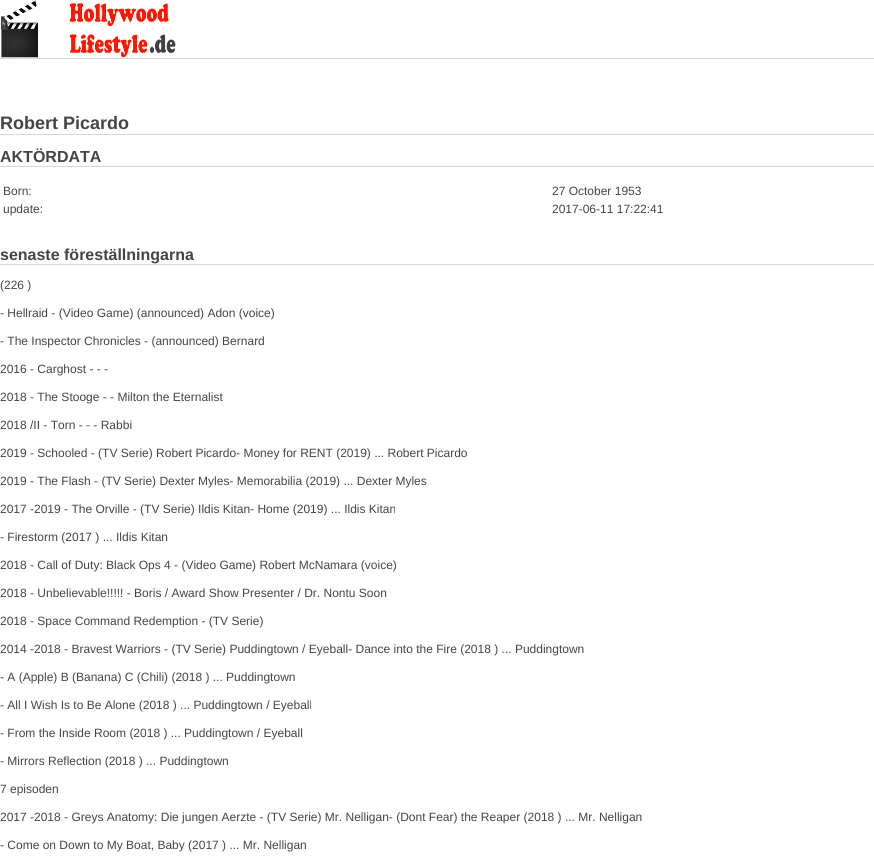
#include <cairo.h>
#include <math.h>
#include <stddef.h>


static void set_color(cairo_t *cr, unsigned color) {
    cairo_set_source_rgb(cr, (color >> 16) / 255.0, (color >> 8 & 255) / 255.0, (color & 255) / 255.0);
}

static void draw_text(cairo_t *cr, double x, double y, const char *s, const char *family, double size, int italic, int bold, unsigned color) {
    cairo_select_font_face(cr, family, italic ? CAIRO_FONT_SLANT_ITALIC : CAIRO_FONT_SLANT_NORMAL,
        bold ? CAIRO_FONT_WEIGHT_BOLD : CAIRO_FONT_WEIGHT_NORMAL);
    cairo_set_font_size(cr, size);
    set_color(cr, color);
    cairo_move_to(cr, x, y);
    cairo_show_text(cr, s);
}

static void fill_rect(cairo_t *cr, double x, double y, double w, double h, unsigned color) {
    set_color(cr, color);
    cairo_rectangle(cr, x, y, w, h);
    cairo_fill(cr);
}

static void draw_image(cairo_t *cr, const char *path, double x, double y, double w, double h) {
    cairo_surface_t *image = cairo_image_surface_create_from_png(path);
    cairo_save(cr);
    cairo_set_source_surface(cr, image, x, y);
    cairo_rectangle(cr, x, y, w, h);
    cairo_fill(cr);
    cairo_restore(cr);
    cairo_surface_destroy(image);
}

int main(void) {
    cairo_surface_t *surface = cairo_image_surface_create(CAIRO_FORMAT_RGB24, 874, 864);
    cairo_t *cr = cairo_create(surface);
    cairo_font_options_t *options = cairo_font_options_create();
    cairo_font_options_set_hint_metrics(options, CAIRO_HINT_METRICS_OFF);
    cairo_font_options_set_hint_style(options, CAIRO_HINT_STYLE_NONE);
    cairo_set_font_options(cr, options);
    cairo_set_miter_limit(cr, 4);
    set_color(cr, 0xFFFFFF);
    cairo_paint(cr);
    draw_image(cr, "assets/img1.png", 1, 0, 175, 58);
    fill_rect(cr, 0, 58, 874, 1, 0xD7D7D7);
    draw_text(cr, 0, 129, "Robert Picardo", "Liberation Sans", 18, 0, 1, 0x444444);
    fill_rect(cr, 0, 134, 874, 1, 0xD7D7D7);
    draw_text(cr, 0, 162, "AKTÖRDATA", "Liberation Sans", 16, 0, 1, 0x444444);
    fill_rect(cr, 0, 166, 874, 1, 0xD7D7D7);
    draw_text(cr, 3, 195, "Born:", "Liberation Sans", 12, 0, 0, 0x444444);
    draw_text(cr, 552, 195, "27 October 1953", "Liberation Sans", 12, 0, 0, 0x444444);
    draw_text(cr, 3, 213, "update:", "Liberation Sans", 12, 0, 0, 0x444444);
    draw_text(cr, 552, 213, "2017-06-11 17:22:41", "Liberation Sans", 12, 0, 0, 0x444444);
    draw_text(cr, 0, 260, "senaste föreställningarna", "Liberation Sans", 16, 0, 1, 0x444444);
    fill_rect(cr, 0, 264, 874, 1, 0xD7D7D7);
    draw_text(cr, 0, 289, "(226 )", "Liberation Sans", 12, 0, 0, 0x444444);
    draw_text(cr, 0, 317, "- Hellraid - (Video Game) (announced) Adon (voice)", "Liberation Sans", 12, 0, 0, 0x444444);
    draw_text(cr, 0, 345, "- The Inspector Chronicles - (announced) Bernard", "Liberation Sans", 12, 0, 0, 0x444444);
    draw_text(cr, 0, 373, "2016 - Carghost - - -", "Liberation Sans", 12, 0, 0, 0x444444);
    draw_text(cr, 0, 401, "2018 - The Stooge - - Milton the Eternalist", "Liberation Sans", 12, 0, 0, 0x444444);
    draw_text(cr, 0, 429, "2018 /II - Torn - - - Rabbi", "Liberation Sans", 12, 0, 0, 0x444444);
    draw_text(cr, 0, 457, "2019 - Schooled - (TV Serie) Robert Picardo- Money for RENT (2019) ... Robert Picardo", "Liberation Sans", 12, 0, 0, 0x444444);
    draw_text(cr, 0, 485, "2019 - The Flash - (TV Serie) Dexter Myles- Memorabilia (2019) ... Dexter Myles", "Liberation Sans", 12, 0, 0, 0x444444);
    draw_text(cr, 0, 513, "2017 -2019 - The Orville - (TV Serie) Ildis Kitan- Home (2019) ... Ildis Kitan", "Liberation Sans", 12, 0, 0, 0x444444);
    draw_text(cr, 0, 541, "- Firestorm (2017 ) ... Ildis Kitan", "Liberation Sans", 12, 0, 0, 0x444444);
    draw_text(cr, 0, 569, "2018 - Call of Duty: Black Ops 4 - (Video Game) Robert McNamara (voice)", "Liberation Sans", 12, 0, 0, 0x444444);
    draw_text(cr, 0, 597, "2018 - Unbelievable!!!!! - Boris / Award Show Presenter / Dr. Nontu Soon", "Liberation Sans", 12, 0, 0, 0x444444);
    draw_text(cr, 0, 625, "2018 - Space Command Redemption - (TV Serie)", "Liberation Sans", 12, 0, 0, 0x444444);
    draw_text(cr, 0, 653, "2014 -2018 - Bravest Warriors - (TV Serie) Puddingtown / Eyeball- Dance into the Fire (2018 ) ... Puddingtown", "Liberation Sans", 12, 0, 0, 0x444444);
    draw_text(cr, 0, 681, "- A (Apple) B (Banana) C (Chili) (2018 ) ... Puddingtown", "Liberation Sans", 12, 0, 0, 0x444444);
    draw_text(cr, 0, 709, "- All I Wish Is to Be Alone (2018 ) ... Puddingtown / Eyeball", "Liberation Sans", 12, 0, 0, 0x444444);
    draw_text(cr, 0, 737, "- From the Inside Room (2018 ) ... Puddingtown / Eyeball", "Liberation Sans", 12, 0, 0, 0x444444);
    draw_text(cr, 0, 765, "- Mirrors Reflection (2018 ) ... Puddingtown", "Liberation Sans", 12, 0, 0, 0x444444);
    draw_text(cr, 0, 793, "7 episoden", "Liberation Sans", 12, 0, 0, 0x444444);
    draw_text(cr, 0, 821, "2017 -2018 - Greys Anatomy: Die jungen Aerzte - (TV Serie) Mr. Nelligan- (Dont Fear) the Reaper (2018 ) ... Mr. Nelligan", "Liberation Sans", 12, 0, 0, 0x444444);
    draw_text(cr, 0, 849, "- Come on Down to My Boat, Baby (2017 ) ... Mr. Nelligan", "Liberation Sans", 12, 0, 0, 0x444444);
    cairo_surface_write_to_png(surface, "output.png");
    cairo_font_options_destroy(options);
    cairo_destroy(cr);
    cairo_surface_destroy(surface);
    return 0;
}
